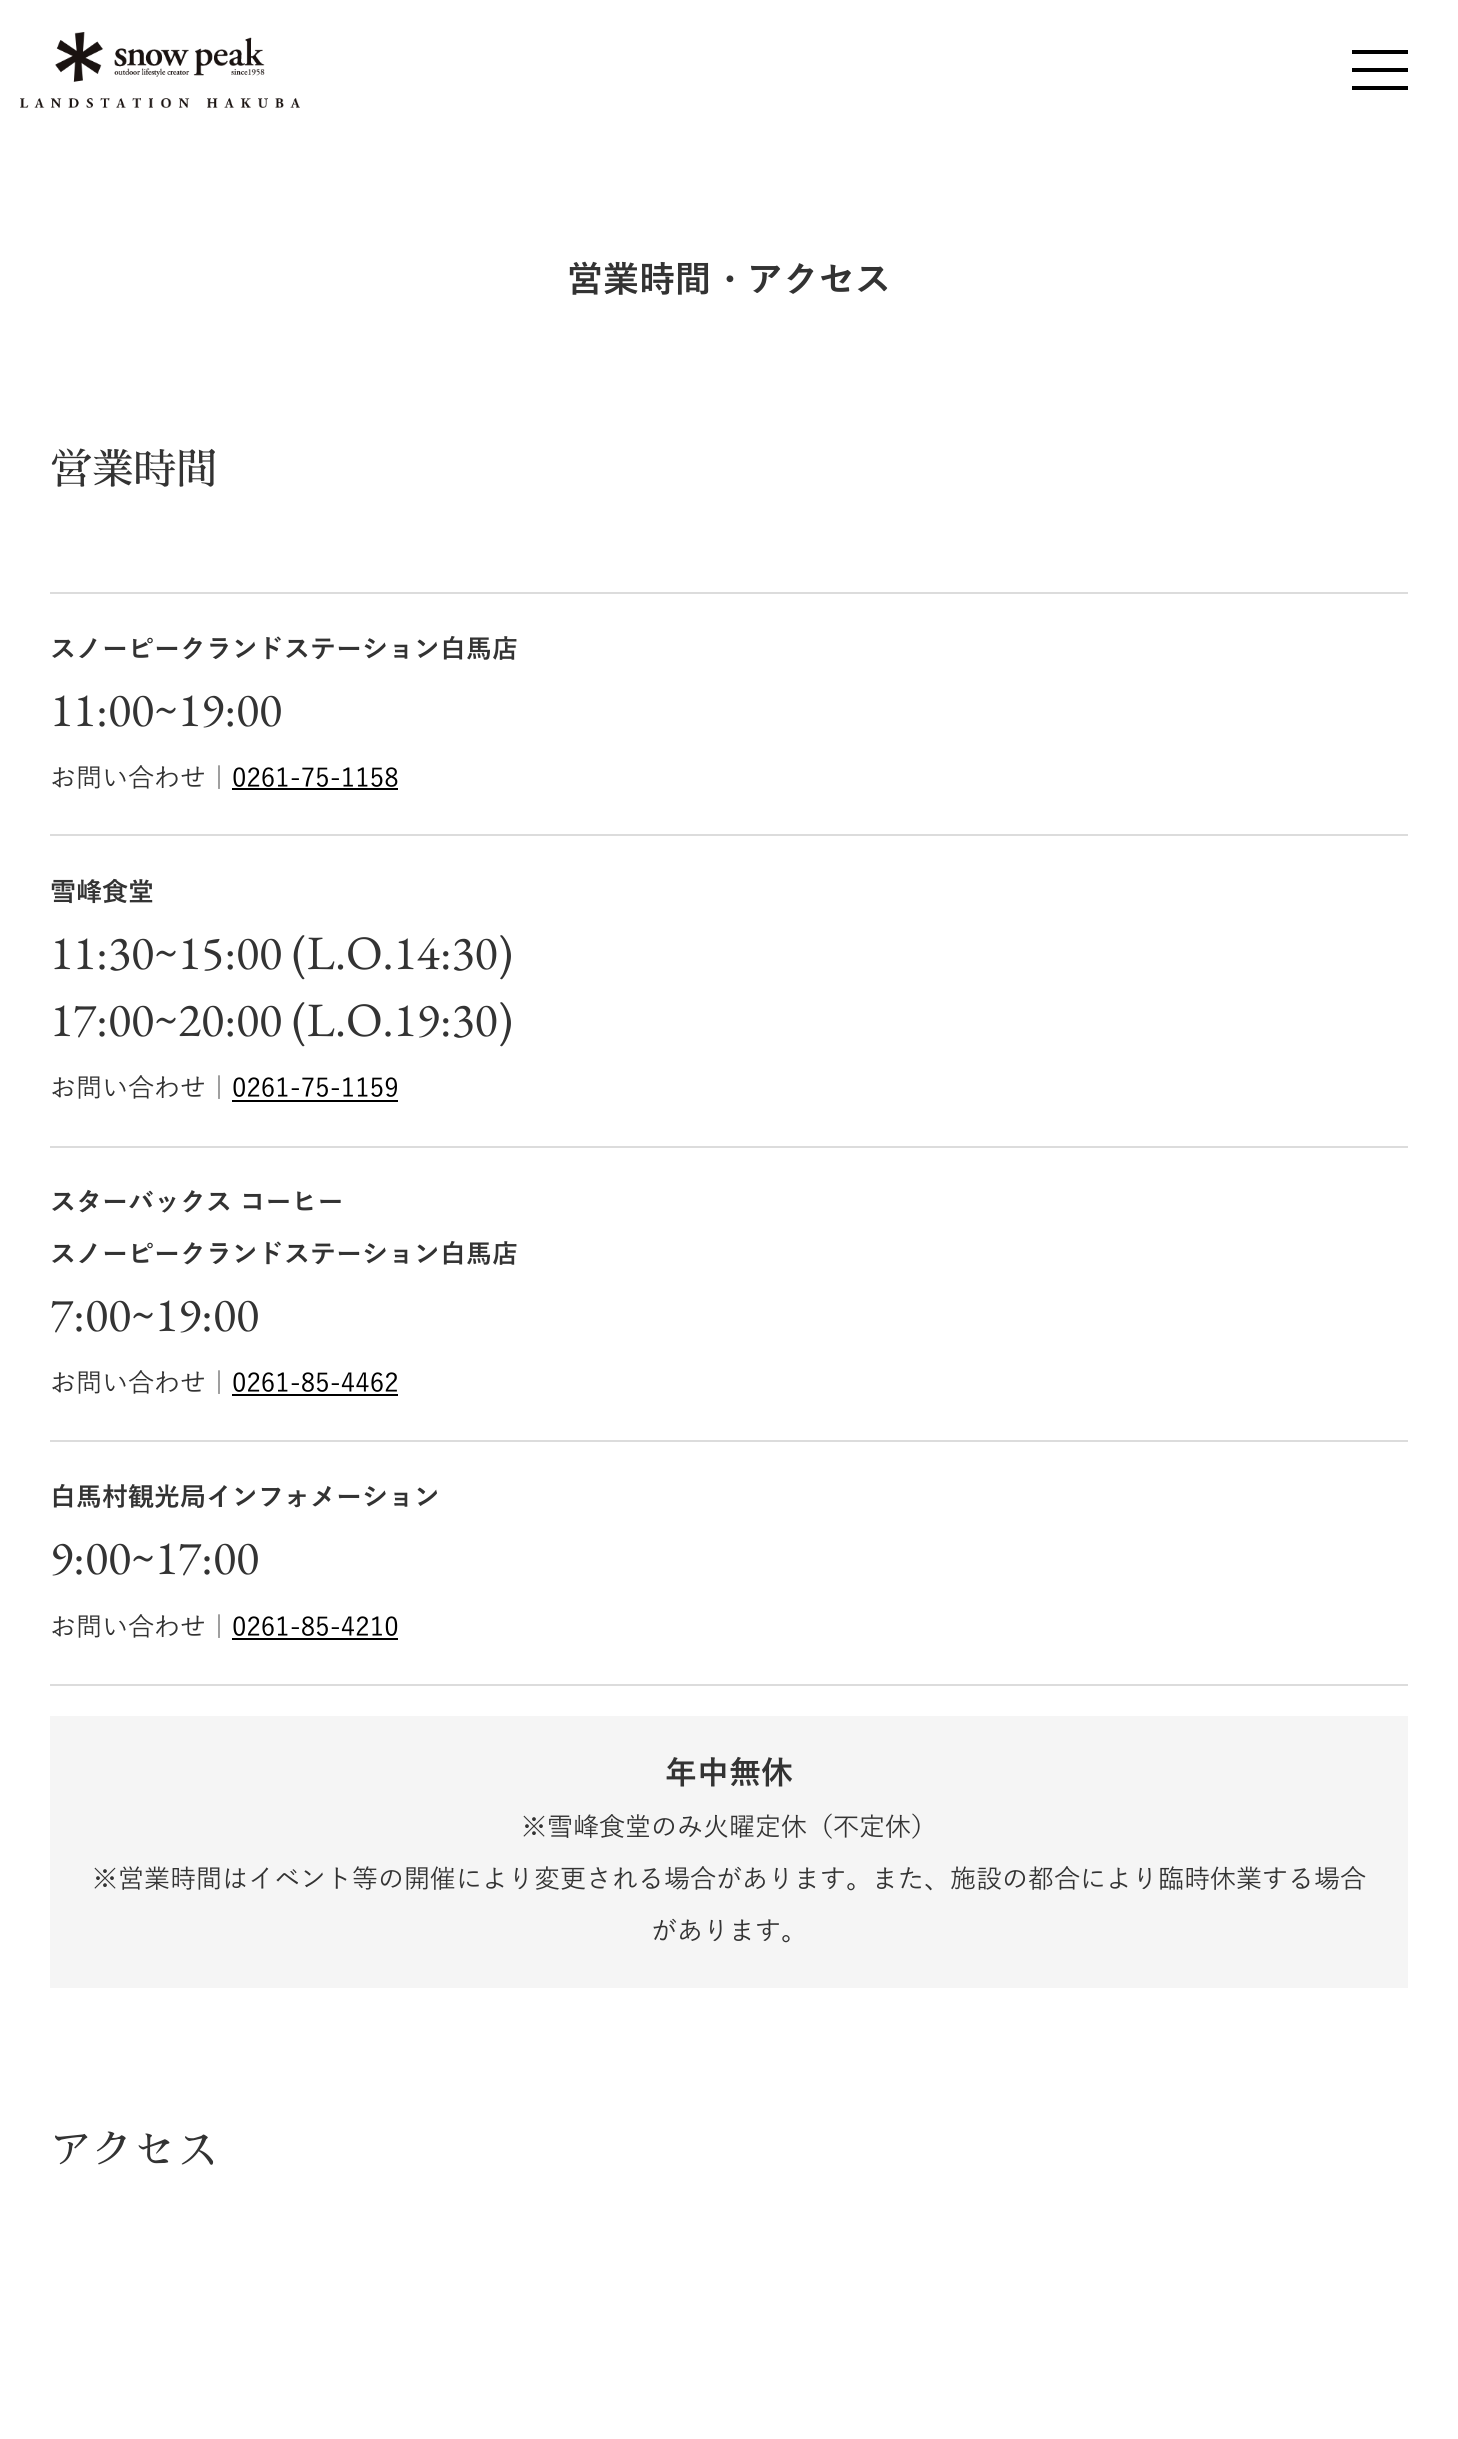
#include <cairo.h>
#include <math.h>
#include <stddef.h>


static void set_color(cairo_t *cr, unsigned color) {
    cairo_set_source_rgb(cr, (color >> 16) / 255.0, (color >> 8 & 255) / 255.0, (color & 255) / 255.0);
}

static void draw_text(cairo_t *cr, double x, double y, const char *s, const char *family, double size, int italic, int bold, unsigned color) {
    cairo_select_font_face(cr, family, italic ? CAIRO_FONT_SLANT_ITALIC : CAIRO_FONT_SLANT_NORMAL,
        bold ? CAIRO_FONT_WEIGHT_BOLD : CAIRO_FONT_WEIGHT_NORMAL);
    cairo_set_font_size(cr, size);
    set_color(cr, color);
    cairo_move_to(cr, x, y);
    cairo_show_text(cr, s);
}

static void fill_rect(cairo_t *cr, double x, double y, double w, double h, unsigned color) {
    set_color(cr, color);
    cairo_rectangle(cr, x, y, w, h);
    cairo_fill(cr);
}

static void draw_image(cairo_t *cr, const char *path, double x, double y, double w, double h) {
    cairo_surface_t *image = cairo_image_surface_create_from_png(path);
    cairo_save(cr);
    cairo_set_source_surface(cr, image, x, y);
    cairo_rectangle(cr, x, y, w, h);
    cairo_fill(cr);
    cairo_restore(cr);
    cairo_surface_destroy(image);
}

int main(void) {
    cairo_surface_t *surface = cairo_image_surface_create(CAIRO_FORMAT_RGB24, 1458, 2439);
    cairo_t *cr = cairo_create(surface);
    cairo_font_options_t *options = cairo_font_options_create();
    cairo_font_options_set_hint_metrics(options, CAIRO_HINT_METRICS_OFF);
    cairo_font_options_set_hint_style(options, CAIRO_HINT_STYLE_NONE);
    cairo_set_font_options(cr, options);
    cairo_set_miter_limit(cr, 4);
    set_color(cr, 0xFFFFFF);
    cairo_paint(cr);
    draw_image(cr, "assets/img1.png", 20, 32, 280, 76);
    fill_rect(cr, 1352, 50, 56, 4, 0x000000);
    fill_rect(cr, 1352, 68, 56, 4, 0x000000);
    fill_rect(cr, 1352, 86, 56, 4, 0x000000);
    draw_text(cr, 567, 292, "営業時間", "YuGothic", 36, 0, 1, 0x333333);
    draw_text(cr, 711, 292, "・", "WenQuanYi Zen Hei", 36, 0, 1, 0x333333);
    draw_text(cr, 747, 292, "アクセス", "YuGothic", 36, 0, 1, 0x333333);
    draw_text(cr, 50, 484, "営業時間", "Sawarabi Mincho", 42, 0, 0, 0x333333);
    fill_rect(cr, 50, 1684, 1358, 2, 0xDCDCDC);
    fill_rect(cr, 50, 592, 1358, 2, 0xDCDCDC);
    draw_text(cr, 50, 658, "スノーピークランドステーション白馬店", "YuGothic", 26, 0, 1, 0x333333);
    draw_text(cr, 50, 726, "11:00~19:00", "EB Garamond", 48, 0, 0, 0x333333);
    draw_text(cr, 50, 787, "お問い合わせ｜", "YuGothic Medium", 26, 0, 0, 0x333333);
    draw_text(cr, 232, 787, "0261-75-1158", "YuGothic Medium", 26, 0, 0, 0x000000);
    fill_rect(cr, 232, 788, 166, 2, 0x000000);
    fill_rect(cr, 50, 834, 1358, 2, 0xDCDCDC);
    draw_text(cr, 50, 901, "雪峰食堂", "YuGothic", 26, 0, 1, 0x333333);
    draw_text(cr, 50, 969, "11:30~15:00 (L.O.14:30)", "EB Garamond", 48, 0, 0, 0x333333);
    draw_text(cr, 50, 1036, "17:00~20:00 (L.O.19:30)", "EB Garamond", 48, 0, 0, 0x333333);
    draw_text(cr, 50, 1097, "お問い合わせ｜", "YuGothic Medium", 26, 0, 0, 0x333333);
    draw_text(cr, 232, 1097, "0261-75-1159", "YuGothic Medium", 26, 0, 0, 0x000000);
    fill_rect(cr, 232, 1100, 166, 2, 0x000000);
    fill_rect(cr, 50, 1146, 1358, 2, 0xDCDCDC);
    draw_text(cr, 50, 1211, "スターバックス コーヒー", "YuGothic", 26, 0, 1, 0x333333);
    draw_text(cr, 50, 1263, "スノーピークランドステーション白馬店", "YuGothic", 26, 0, 1, 0x333333);
    draw_text(cr, 50, 1331, "7:00~19:00", "EB Garamond", 48, 0, 0, 0x333333);
    draw_text(cr, 50, 1392, "お問い合わせ｜", "YuGothic Medium", 26, 0, 0, 0x333333);
    draw_text(cr, 232, 1392, "0261-85-4462", "YuGothic Medium", 26, 0, 0, 0x000000);
    fill_rect(cr, 232, 1394, 166, 2, 0x000000);
    fill_rect(cr, 50, 1440, 1358, 2, 0xDCDCDC);
    draw_text(cr, 50, 1506, "白馬村観光局インフォメーション", "YuGothic", 26, 0, 1, 0x333333);
    draw_text(cr, 50, 1574, "9:00~17:00", "EB Garamond", 48, 0, 0, 0x333333);
    draw_text(cr, 50, 1636, "お問い合わせ｜", "YuGothic Medium", 26, 0, 0, 0x333333);
    draw_text(cr, 232, 1636, "0261-85-4210", "YuGothic Medium", 26, 0, 0, 0x000000);
    fill_rect(cr, 232, 1638, 166, 2, 0x000000);
    fill_rect(cr, 50, 1716, 1358, 272, 0xF5F5F5);
    draw_text(cr, 665, 1784, "年中無休", "YuGothic", 32, 0, 1, 0x333333);
    draw_text(cr, 521, 1836, "※雪峰食堂のみ火曜定休（不定休）", "YuGothic Medium", 26, 0, 0, 0x333333);
    draw_text(cr, 92, 1888, "※営業時間はイベント等の開催により変更される場合があります。また、施設の都合により臨時休業する場合", "YuGothic Medium", 26, 0, 0, 0x333333);
    draw_text(cr, 651, 1940, "があります。", "YuGothic Medium", 26, 0, 0, 0x333333);
    draw_text(cr, 50, 2164, "アクセス", "Sawarabi Mincho", 42, 0, 0, 0x333333);
    cairo_surface_write_to_png(surface, "output.png");
    cairo_font_options_destroy(options);
    cairo_destroy(cr);
    cairo_surface_destroy(surface);
    return 0;
}
